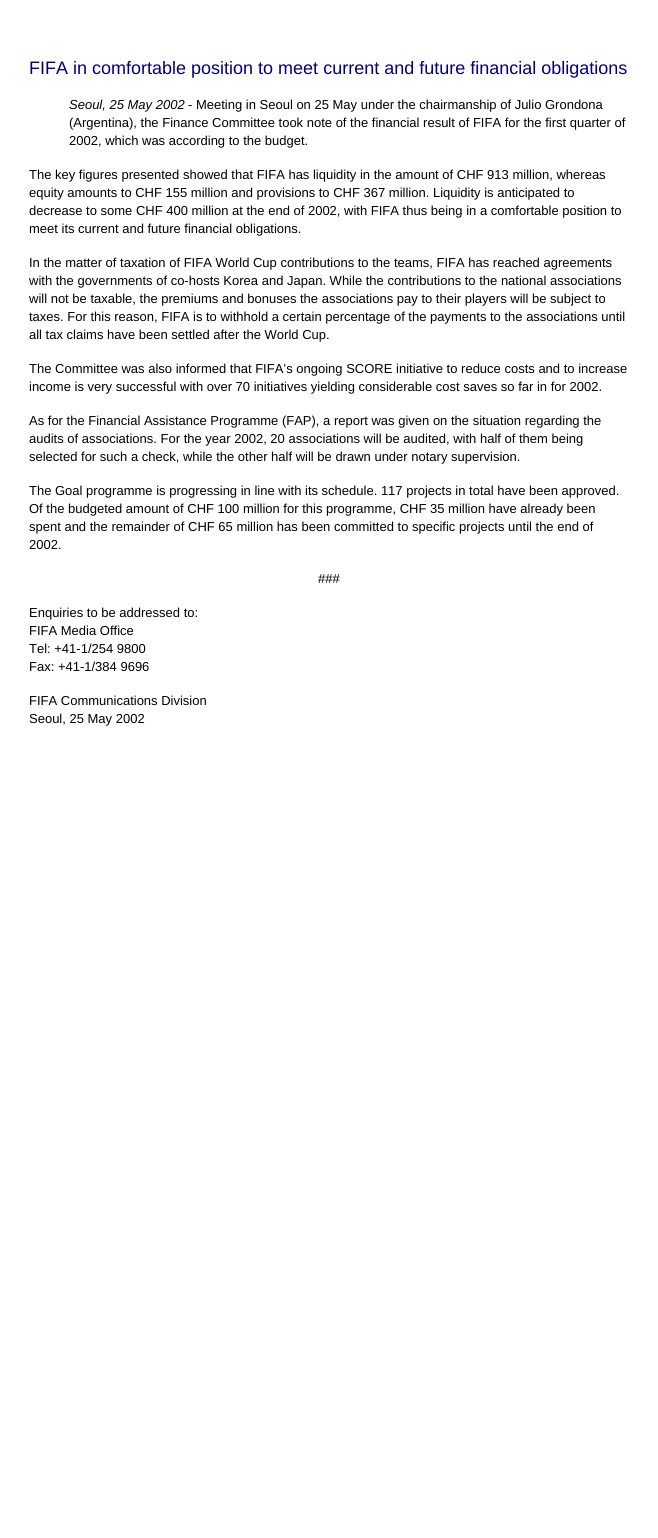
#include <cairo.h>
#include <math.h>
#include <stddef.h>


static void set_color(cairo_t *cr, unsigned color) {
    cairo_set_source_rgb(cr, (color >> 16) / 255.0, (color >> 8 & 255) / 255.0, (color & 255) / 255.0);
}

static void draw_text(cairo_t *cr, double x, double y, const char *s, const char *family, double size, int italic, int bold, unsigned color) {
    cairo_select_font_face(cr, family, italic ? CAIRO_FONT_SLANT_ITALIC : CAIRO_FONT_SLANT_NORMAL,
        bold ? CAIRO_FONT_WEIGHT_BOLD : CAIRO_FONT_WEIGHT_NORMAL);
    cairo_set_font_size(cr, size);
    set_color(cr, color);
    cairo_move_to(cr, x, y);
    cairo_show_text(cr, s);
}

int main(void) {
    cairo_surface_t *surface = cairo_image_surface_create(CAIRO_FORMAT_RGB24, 658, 1538);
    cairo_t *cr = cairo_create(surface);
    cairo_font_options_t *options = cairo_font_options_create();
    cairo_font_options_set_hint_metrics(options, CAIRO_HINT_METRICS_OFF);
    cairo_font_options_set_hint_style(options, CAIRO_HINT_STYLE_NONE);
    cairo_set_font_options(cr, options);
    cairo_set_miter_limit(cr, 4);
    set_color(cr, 0xFFFFFF);
    cairo_paint(cr);
    draw_text(cr, 29, 74, "FIFA in comfortable position to meet current and future financial obligations", "Liberation Sans", 18, 0, 0, 0x000080);
    draw_text(cr, 69, 109, "Seoul, 25 May 2002", "Liberation Sans", 13, 1, 0, 0x000000);
    draw_text(cr, 188, 109, "- Meeting in Seoul on 25 May under the chairmanship of Julio Grondona", "Liberation Sans", 13, 0, 0, 0x000000);
    draw_text(cr, 69, 127, "(Argentina), the Finance Committee took note of the financial result of FIFA for the first quarter of", "Liberation Sans", 13, 0, 0, 0x000000);
    draw_text(cr, 69, 145, "2002, which was according to the budget.", "Liberation Sans", 13, 0, 0, 0x000000);
    draw_text(cr, 29, 179, "The key figures presented showed that FIFA has liquidity in the amount of CHF 913 million, whereas", "Liberation Sans", 13, 0, 0, 0x000000);
    draw_text(cr, 29, 197, "equity amounts to CHF 155 million and provisions to CHF 367 million. Liquidity is anticipated to", "Liberation Sans", 13, 0, 0, 0x000000);
    draw_text(cr, 29, 215, "decrease to some CHF 400 million at the end of 2002, with FIFA thus being in a comfortable position to", "Liberation Sans", 13, 0, 0, 0x000000);
    draw_text(cr, 29, 233, "meet its current and future financial obligations.", "Liberation Sans", 13, 0, 0, 0x000000);
    draw_text(cr, 29, 267, "In the matter of taxation of FIFA World Cup contributions to the teams, FIFA has reached agreements", "Liberation Sans", 13, 0, 0, 0x000000);
    draw_text(cr, 29, 285, "with the governments of co-hosts Korea and Japan. While the contributions to the national associations", "Liberation Sans", 13, 0, 0, 0x000000);
    draw_text(cr, 29, 303, "will not be taxable, the premiums and bonuses the associations pay to their players will be subject to", "Liberation Sans", 13, 0, 0, 0x000000);
    draw_text(cr, 29, 321, "taxes. For this reason, FIFA is to withhold a certain percentage of the payments to the associations until", "Liberation Sans", 13, 0, 0, 0x000000);
    draw_text(cr, 29, 339, "all tax claims have been settled after the World Cup.", "Liberation Sans", 13, 0, 0, 0x000000);
    draw_text(cr, 29, 373, "The Committee was also informed that FIFA’s ongoing SCORE initiative to reduce costs and to increase", "Liberation Sans", 13, 0, 0, 0x000000);
    draw_text(cr, 29, 391, "income is very successful with over 70 initiatives yielding considerable cost saves so far in for 2002.", "Liberation Sans", 13, 0, 0, 0x000000);
    draw_text(cr, 29, 425, "As for the Financial Assistance Programme (FAP), a report was given on the situation regarding the", "Liberation Sans", 13, 0, 0, 0x000000);
    draw_text(cr, 29, 443, "audits of associations. For the year 2002, 20 associations will be audited, with half of them being", "Liberation Sans", 13, 0, 0, 0x000000);
    draw_text(cr, 29, 461, "selected for such a check, while the other half will be drawn under notary supervision.", "Liberation Sans", 13, 0, 0, 0x000000);
    draw_text(cr, 29, 495, "The Goal programme is progressing in line with its schedule. 117 projects in total have been approved.", "Liberation Sans", 13, 0, 0, 0x000000);
    draw_text(cr, 29, 513, "Of the budgeted amount of CHF 100 million for this programme, CHF 35 million have already been", "Liberation Sans", 13, 0, 0, 0x000000);
    draw_text(cr, 29, 531, "spent and the remainder of CHF 65 million has been committed to specific projects until the end of", "Liberation Sans", 13, 0, 0, 0x000000);
    draw_text(cr, 29, 549, "2002.", "Liberation Sans", 13, 0, 0, 0x000000);
    draw_text(cr, 318, 583, "###", "Liberation Sans", 13, 0, 0, 0x000000);
    draw_text(cr, 29, 617, "Enquiries to be addressed to:", "Liberation Sans", 13, 0, 0, 0x000000);
    draw_text(cr, 29, 635, "FIFA Media Office", "Liberation Sans", 13, 0, 0, 0x000000);
    draw_text(cr, 29, 653, "Tel: +41-1/254 9800", "Liberation Sans", 13, 0, 0, 0x000000);
    draw_text(cr, 29, 671, "Fax: +41-1/384 9696", "Liberation Sans", 13, 0, 0, 0x000000);
    draw_text(cr, 29, 705, "FIFA Communications Division", "Liberation Sans", 13, 0, 0, 0x000000);
    draw_text(cr, 29, 723, "Seoul, 25 May 2002", "Liberation Sans", 13, 0, 0, 0x000000);
    cairo_surface_write_to_png(surface, "output.png");
    cairo_font_options_destroy(options);
    cairo_destroy(cr);
    cairo_surface_destroy(surface);
    return 0;
}
